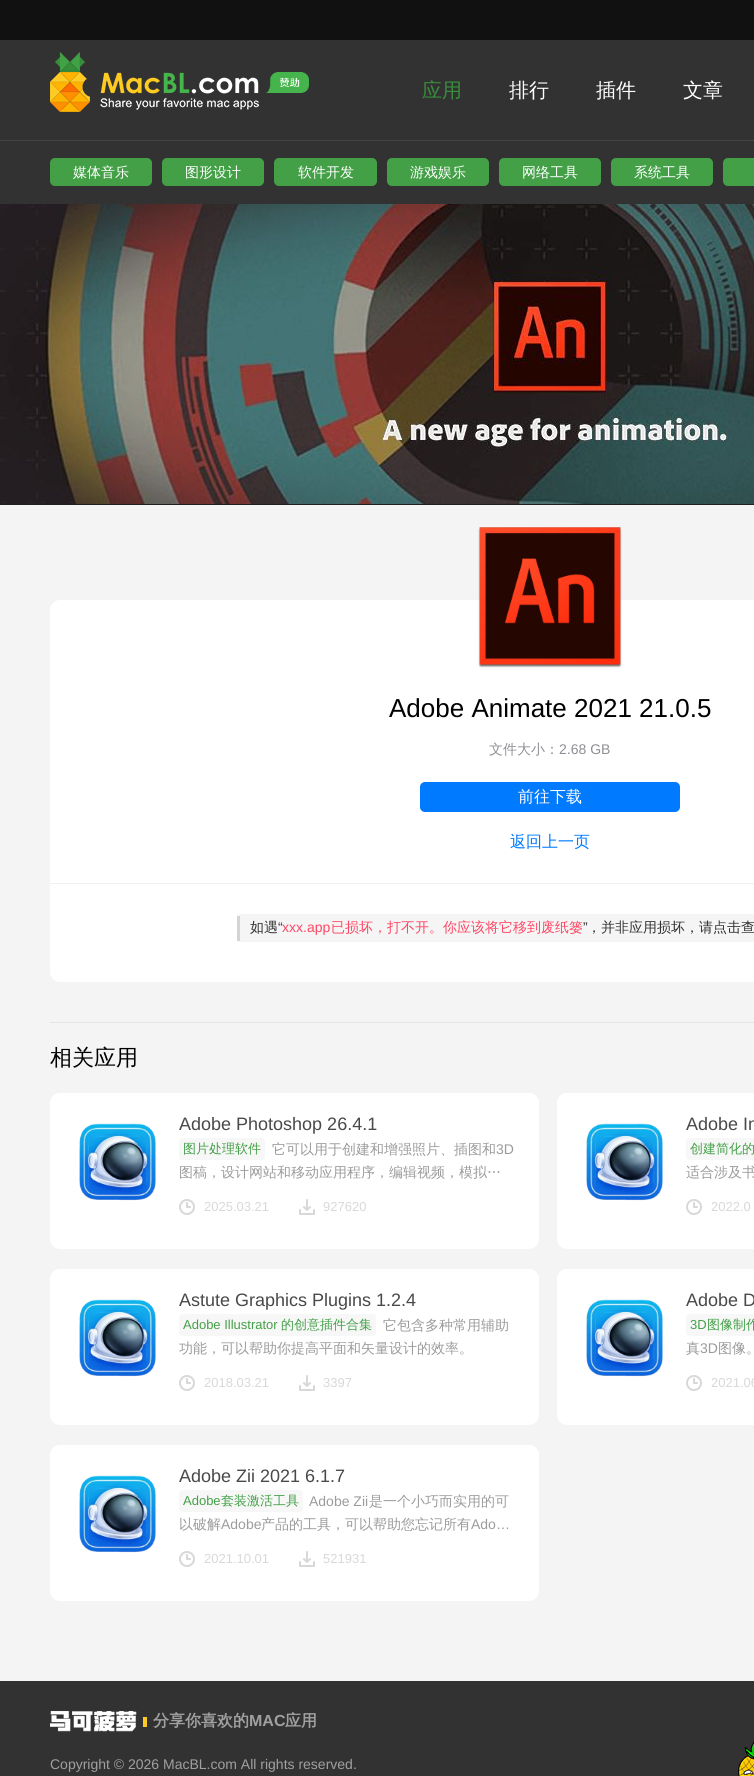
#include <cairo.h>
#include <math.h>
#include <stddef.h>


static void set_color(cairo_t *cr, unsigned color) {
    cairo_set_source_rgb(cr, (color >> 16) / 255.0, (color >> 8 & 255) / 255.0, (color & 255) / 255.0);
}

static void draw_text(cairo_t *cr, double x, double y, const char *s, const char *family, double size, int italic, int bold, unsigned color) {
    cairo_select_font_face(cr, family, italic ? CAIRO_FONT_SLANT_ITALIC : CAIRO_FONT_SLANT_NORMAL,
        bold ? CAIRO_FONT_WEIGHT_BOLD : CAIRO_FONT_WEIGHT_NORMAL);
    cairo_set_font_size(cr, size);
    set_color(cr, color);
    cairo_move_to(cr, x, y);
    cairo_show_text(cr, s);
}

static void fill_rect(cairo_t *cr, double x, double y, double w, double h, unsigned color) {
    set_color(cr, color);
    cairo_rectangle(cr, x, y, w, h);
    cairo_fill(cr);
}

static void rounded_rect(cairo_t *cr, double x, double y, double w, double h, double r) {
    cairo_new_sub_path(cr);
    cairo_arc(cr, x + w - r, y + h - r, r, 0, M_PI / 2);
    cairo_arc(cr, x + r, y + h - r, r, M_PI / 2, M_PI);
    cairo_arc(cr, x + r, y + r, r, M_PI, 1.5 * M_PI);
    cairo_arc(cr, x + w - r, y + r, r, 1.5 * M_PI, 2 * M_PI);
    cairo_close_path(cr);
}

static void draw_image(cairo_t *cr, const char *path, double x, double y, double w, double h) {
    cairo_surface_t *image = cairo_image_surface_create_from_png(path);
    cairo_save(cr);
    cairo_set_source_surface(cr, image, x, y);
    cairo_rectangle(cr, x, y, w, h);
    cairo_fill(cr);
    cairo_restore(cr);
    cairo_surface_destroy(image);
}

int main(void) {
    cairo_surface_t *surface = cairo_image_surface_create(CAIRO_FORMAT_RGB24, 754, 1776);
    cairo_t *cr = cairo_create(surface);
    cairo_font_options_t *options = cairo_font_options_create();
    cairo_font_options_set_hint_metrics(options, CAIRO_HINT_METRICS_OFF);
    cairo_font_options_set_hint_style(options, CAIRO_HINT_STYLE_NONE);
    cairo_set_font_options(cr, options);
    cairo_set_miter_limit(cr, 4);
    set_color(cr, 0xF4F4F4);
    cairo_paint(cr);
    fill_rect(cr, 0, 0, 754, 40, 0x111111);
    fill_rect(cr, 0, 40, 754, 100, 0x323232);
    draw_image(cr, "assets/img1.png", 50, 52, 209, 60);
    draw_image(cr, "assets/img2.png", 265, 72, 44, 21);
    draw_text(cr, 422, 97, "应用", "WenQuanYi Zen Hei Medium", 20, 0, 0, 0x388E3C);
    draw_text(cr, 509, 97, "排行", "WenQuanYi Zen Hei Medium", 20, 0, 0, 0xFFFFFF);
    draw_text(cr, 596, 97, "插件", "WenQuanYi Zen Hei Medium", 20, 0, 0, 0xFFFFFF);
    draw_text(cr, 683, 97, "文章", "WenQuanYi Zen Hei Medium", 20, 0, 0, 0xFFFFFF);
    fill_rect(cr, 0, 141, 754, 63, 0x323232);
    fill_rect(cr, 0, 140, 754, 1, 0x444444);
    set_color(cr, 0x43A047);
    rounded_rect(cr, 50, 158, 102, 28, 5);
    cairo_fill(cr);
    draw_text(cr, 73, 177, "媒体音乐", "WenQuanYi Zen Hei Medium", 14, 0, 0, 0xFFFFFF);
    set_color(cr, 0x43A047);
    rounded_rect(cr, 162, 158, 102, 28, 5);
    cairo_fill(cr);
    draw_text(cr, 185, 177, "图形设计", "WenQuanYi Zen Hei Medium", 14, 0, 0, 0xFFFFFF);
    set_color(cr, 0x43A047);
    rounded_rect(cr, 274, 158, 103, 28, 5);
    cairo_fill(cr);
    draw_text(cr, 298, 177, "软件开发", "WenQuanYi Zen Hei Medium", 14, 0, 0, 0xFFFFFF);
    set_color(cr, 0x43A047);
    rounded_rect(cr, 387, 158, 102, 28, 5);
    cairo_fill(cr);
    draw_text(cr, 410, 177, "游戏娱乐", "WenQuanYi Zen Hei Medium", 14, 0, 0, 0xFFFFFF);
    set_color(cr, 0x43A047);
    rounded_rect(cr, 499, 158, 102, 28, 5);
    cairo_fill(cr);
    draw_text(cr, 522, 177, "网络工具", "WenQuanYi Zen Hei Medium", 14, 0, 0, 0xFFFFFF);
    set_color(cr, 0x43A047);
    rounded_rect(cr, 611, 158, 102, 28, 5);
    cairo_fill(cr);
    draw_text(cr, 634, 177, "系统工具", "WenQuanYi Zen Hei Medium", 14, 0, 0, 0xFFFFFF);
    set_color(cr, 0x43A047);
    rounded_rect(cr, 723, 158, 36, 28, 5);
    cairo_fill(cr);
    draw_image(cr, "assets/img3.png", 0, 204, 754, 300);
    fill_rect(cr, 0, 504, 754, 1, 0x221D20);
    set_color(cr, 0xFFFFFF);
    rounded_rect(cr, 50, 600, 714, 382, 10);
    cairo_fill(cr);
    draw_image(cr, "assets/img4.png", 478, 527, 144, 141);
    draw_text(cr, 389, 717, "Adobe Animate 2021 21.0.5", "Liberation Sans", 26, 0, 0, 0x000000);
    draw_text(cr, 489, 754, "文件大小：", "WenQuanYi Zen Hei Medium", 14, 0, 0, 0x8E8F94);
    draw_text(cr, 559, 754, "2.68 GB", "Liberation Sans", 14, 0, 0, 0x8E8F94);
    set_color(cr, 0x007AFF);
    rounded_rect(cr, 420, 782, 260, 30, 5);
    cairo_fill(cr);
    draw_text(cr, 518, 802, "前往下载", "WenQuanYi Zen Hei Medium", 16, 0, 0, 0xFFFFFF);
    draw_text(cr, 510, 847, "返回上一页", "WenQuanYi Zen Hei Medium", 16, 0, 0, 0x007AFF);
    fill_rect(cr, 50, 883, 704, 1, 0xF1F1F1);
    set_color(cr, 0xF5F5F5);
    rounded_rect(cr, 237, 914, 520, 28, 3);
    cairo_fill(cr);
    fill_rect(cr, 237, 916, 3, 25, 0xD3D4D8);
    draw_text(cr, 250, 932, "如遇", "WenQuanYi Zen Hei Medium", 14, 0, 0, 0x323232);
    draw_text(cr, 278, 932, "“", "Liberation Sans", 14, 0, 0, 0x323232);
    draw_text(cr, 282, 932, "xxx.app", "Liberation Sans", 14, 0, 0, 0xFF4765);
    draw_text(cr, 331, 932, "已损坏，打不开。你应该将它移到废纸篓", "WenQuanYi Zen Hei Medium", 14, 0, 0, 0xFF4765);
    draw_text(cr, 583, 932, "”", "Liberation Sans", 14, 0, 0, 0x323232);
    draw_text(cr, 587, 932, "，并非应用损坏，请点击查", "WenQuanYi Zen Hei Medium", 14, 0, 0, 0x323232);
    fill_rect(cr, 50, 1022, 704, 1, 0xE5E5E5);
    draw_text(cr, 50, 1065, "相关应用", "WenQuanYi Zen Hei Medium", 22, 0, 0, 0x000000);
    set_color(cr, 0xFFFFFF);
    rounded_rect(cr, 50, 1093, 489, 156, 10);
    cairo_fill(cr);
    draw_image(cr, "assets/img5.png", 79, 1123, 77, 78);
    draw_text(cr, 179, 1130, "Adobe Photoshop 26.4.1", "Liberation Sans", 18, 0, 0, 0x494949);
    set_color(cr, 0xF7F7F7);
    rounded_rect(cr, 179, 1138, 86, 22, 3);
    cairo_fill(cr);
    draw_text(cr, 183, 1153, "图片处理软件", "WenQuanYi Zen Hei Medium", 13, 0, 0, 0x43A047);
    draw_text(cr, 272, 1154, "它可以用于创建和增强照片、插图和", "WenQuanYi Zen Hei Medium", 14, 0, 0, 0x9B9B9B);
    draw_text(cr, 496, 1154, "3D", "Liberation Sans", 14, 0, 0, 0x9B9B9B);
    draw_text(cr, 179, 1177, "图稿，设计网站和移动应用程序，编辑视频，模拟…", "WenQuanYi Zen Hei Medium", 14, 0, 0, 0x9B9B9B);
    draw_image(cr, "assets/img6.png", 179, 1199, 16, 16);
    draw_text(cr, 204, 1211, "2025.03.21", "Liberation Sans", 13, 0, 0, 0xD8D8D8);
    draw_image(cr, "assets/img7.png", 299, 1199, 16, 16);
    draw_text(cr, 323, 1211, "927620", "Liberation Sans", 13, 0, 0, 0xD8D8D8);
    set_color(cr, 0xFFFFFF);
    rounded_rect(cr, 557, 1093, 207, 156, 10);
    cairo_fill(cr);
    draw_image(cr, "assets/img8.png", 586, 1123, 77, 78);
    draw_text(cr, 686, 1130, "Adobe In", "Liberation Sans", 18, 0, 0, 0x494949);
    set_color(cr, 0xF7F7F7);
    rounded_rect(cr, 686, 1138, 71, 22, 3);
    cairo_fill(cr);
    draw_text(cr, 690, 1153, "创建简化的", "WenQuanYi Zen Hei Medium", 13, 0, 0, 0x43A047);
    draw_text(cr, 686, 1177, "适合涉及书", "WenQuanYi Zen Hei Medium", 14, 0, 0, 0x9B9B9B);
    draw_image(cr, "assets/img6.png", 686, 1199, 16, 16);
    draw_text(cr, 711, 1211, "2022.0", "Liberation Sans", 13, 0, 0, 0xD8D8D8);
    set_color(cr, 0xFFFFFF);
    rounded_rect(cr, 50, 1269, 489, 156, 10);
    cairo_fill(cr);
    draw_image(cr, "assets/img5.png", 79, 1299, 77, 78);
    draw_text(cr, 179, 1306, "Astute Graphics Plugins 1.2.4", "Liberation Sans", 18, 0, 0, 0x494949);
    set_color(cr, 0xF7F7F7);
    rounded_rect(cr, 179, 1314, 197, 22, 3);
    cairo_fill(cr);
    draw_text(cr, 183, 1329, "Adobe Illustrator", "Liberation Sans", 13, 0, 0, 0x43A047);
    draw_text(cr, 281, 1329, "的创意插件合集", "WenQuanYi Zen Hei Medium", 13, 0, 0, 0x43A047);
    draw_text(cr, 383, 1330, "它包含多种常用辅助", "WenQuanYi Zen Hei Medium", 14, 0, 0, 0x9B9B9B);
    draw_text(cr, 179, 1353, "功能，可以帮助你提高平面和矢量设计的效率。", "WenQuanYi Zen Hei Medium", 14, 0, 0, 0x9B9B9B);
    draw_image(cr, "assets/img6.png", 179, 1375, 16, 16);
    draw_text(cr, 204, 1387, "2018.03.21", "Liberation Sans", 13, 0, 0, 0xD8D8D8);
    draw_image(cr, "assets/img7.png", 299, 1375, 16, 16);
    draw_text(cr, 323, 1387, "3397", "Liberation Sans", 13, 0, 0, 0xD8D8D8);
    set_color(cr, 0xFFFFFF);
    rounded_rect(cr, 557, 1269, 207, 156, 10);
    cairo_fill(cr);
    draw_image(cr, "assets/img8.png", 586, 1299, 77, 78);
    draw_text(cr, 686, 1306, "Adobe D", "Liberation Sans", 18, 0, 0, 0x494949);
    set_color(cr, 0xF7F7F7);
    rounded_rect(cr, 686, 1314, 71, 22, 3);
    cairo_fill(cr);
    draw_text(cr, 690, 1329, "3D", "Liberation Sans", 13, 0, 0, 0x43A047);
    draw_text(cr, 707, 1329, "图像制作", "WenQuanYi Zen Hei Medium", 13, 0, 0, 0x43A047);
    draw_text(cr, 686, 1353, "真", "WenQuanYi Zen Hei Medium", 14, 0, 0, 0x9B9B9B);
    draw_text(cr, 700, 1353, "3D", "Liberation Sans", 14, 0, 0, 0x9B9B9B);
    draw_text(cr, 718, 1353, "图像。", "WenQuanYi Zen Hei Medium", 14, 0, 0, 0x9B9B9B);
    draw_image(cr, "assets/img6.png", 686, 1375, 16, 16);
    draw_text(cr, 711, 1387, "2021.06", "Liberation Sans", 13, 0, 0, 0xD8D8D8);
    set_color(cr, 0xFFFFFF);
    rounded_rect(cr, 50, 1445, 489, 156, 10);
    cairo_fill(cr);
    draw_image(cr, "assets/img5.png", 79, 1475, 77, 78);
    draw_text(cr, 179, 1482, "Adobe Zii 2021 6.1.7", "Liberation Sans", 18, 0, 0, 0x494949);
    set_color(cr, 0xF7F7F7);
    rounded_rect(cr, 179, 1490, 124, 22, 3);
    cairo_fill(cr);
    draw_text(cr, 183, 1505, "Adobe", "Liberation Sans", 13, 0, 0, 0x43A047);
    draw_text(cr, 221, 1505, "套装激活工具", "WenQuanYi Zen Hei Medium", 13, 0, 0, 0x43A047);
    draw_text(cr, 309, 1506, "Adobe Zii", "Liberation Sans", 14, 0, 0, 0x9B9B9B);
    draw_text(cr, 369, 1506, "是一个小巧而实用的可", "WenQuanYi Zen Hei Medium", 14, 0, 0, 0x9B9B9B);
    draw_text(cr, 179, 1529, "以破解", "WenQuanYi Zen Hei Medium", 14, 0, 0, 0x9B9B9B);
    draw_text(cr, 221, 1529, "Adobe", "Liberation Sans", 14, 0, 0, 0x9B9B9B);
    draw_text(cr, 261, 1529, "产品的工具，可以帮助您忘记所有", "WenQuanYi Zen Hei Medium", 14, 0, 0, 0x9B9B9B);
    draw_text(cr, 471, 1529, "Ado…", "Liberation Sans", 14, 0, 0, 0x9B9B9B);
    draw_image(cr, "assets/img6.png", 179, 1551, 16, 16);
    draw_text(cr, 204, 1563, "2021.10.01", "Liberation Sans", 13, 0, 0, 0xD8D8D8);
    draw_image(cr, "assets/img7.png", 299, 1551, 16, 16);
    draw_text(cr, 323, 1563, "521931", "Liberation Sans", 13, 0, 0, 0xD8D8D8);
    fill_rect(cr, 0, 1681, 754, 95, 0x323232);
    draw_image(cr, "assets/img9.png", 50, 1711, 87, 21);
    fill_rect(cr, 143, 1717, 4, 10, 0xFFCA28);
    draw_text(cr, 153, 1726, "分享你喜欢的", "WenQuanYi Zen Hei", 16, 0, 1, 0xA1A0A0);
    draw_text(cr, 249, 1726, "MAC", "Liberation Sans", 16, 0, 1, 0xA1A0A0);
    draw_text(cr, 285, 1726, "应用", "WenQuanYi Zen Hei", 16, 0, 1, 0xA1A0A0);
    draw_text(cr, 50, 1769, "Copyright © 2026 MacBL.com All rights reserved.", "Liberation Sans", 14, 0, 0, 0xA1A0A0);
    draw_image(cr, "assets/img10.png", 738, 1741, 16, 35);
    cairo_surface_write_to_png(surface, "output.png");
    cairo_font_options_destroy(options);
    cairo_destroy(cr);
    cairo_surface_destroy(surface);
    return 0;
}
